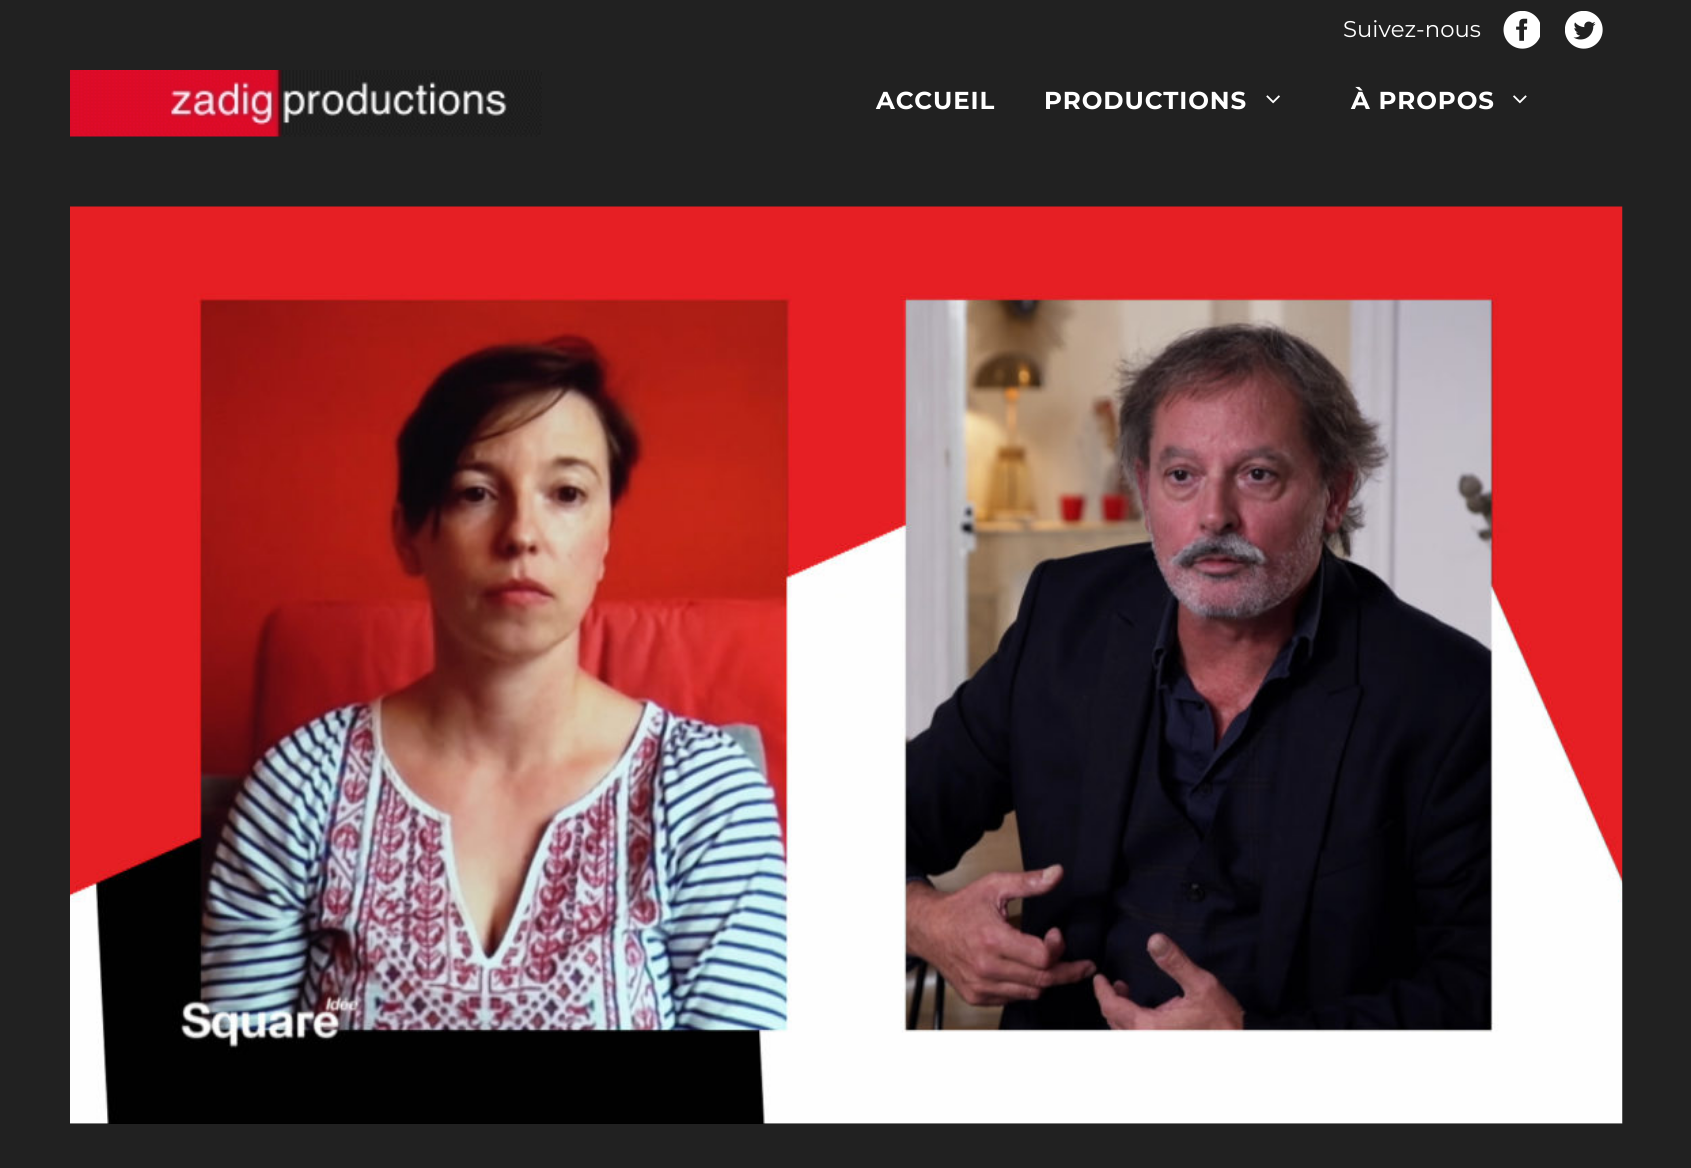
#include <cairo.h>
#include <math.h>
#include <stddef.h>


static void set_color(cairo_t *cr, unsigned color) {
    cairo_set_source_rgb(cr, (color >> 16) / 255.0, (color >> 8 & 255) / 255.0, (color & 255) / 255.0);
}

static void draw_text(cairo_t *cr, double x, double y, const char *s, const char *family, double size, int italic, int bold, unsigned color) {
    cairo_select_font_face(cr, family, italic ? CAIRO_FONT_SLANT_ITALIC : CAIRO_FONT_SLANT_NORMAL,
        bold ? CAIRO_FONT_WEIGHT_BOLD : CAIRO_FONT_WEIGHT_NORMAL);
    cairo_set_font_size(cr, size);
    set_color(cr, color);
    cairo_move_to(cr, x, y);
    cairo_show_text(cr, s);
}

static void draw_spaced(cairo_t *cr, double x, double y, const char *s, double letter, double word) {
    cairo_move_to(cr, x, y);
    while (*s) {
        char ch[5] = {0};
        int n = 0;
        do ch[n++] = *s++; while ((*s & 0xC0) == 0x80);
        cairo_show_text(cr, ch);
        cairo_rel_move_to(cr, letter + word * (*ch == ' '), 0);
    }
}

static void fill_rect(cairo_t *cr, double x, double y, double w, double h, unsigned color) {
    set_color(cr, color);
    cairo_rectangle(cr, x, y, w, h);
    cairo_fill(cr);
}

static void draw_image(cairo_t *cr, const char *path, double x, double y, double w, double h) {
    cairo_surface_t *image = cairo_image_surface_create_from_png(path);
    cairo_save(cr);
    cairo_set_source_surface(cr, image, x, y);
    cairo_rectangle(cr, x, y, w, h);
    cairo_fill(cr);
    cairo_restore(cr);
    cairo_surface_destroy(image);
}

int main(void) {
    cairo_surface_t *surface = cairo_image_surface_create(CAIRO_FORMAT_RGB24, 1691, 1168);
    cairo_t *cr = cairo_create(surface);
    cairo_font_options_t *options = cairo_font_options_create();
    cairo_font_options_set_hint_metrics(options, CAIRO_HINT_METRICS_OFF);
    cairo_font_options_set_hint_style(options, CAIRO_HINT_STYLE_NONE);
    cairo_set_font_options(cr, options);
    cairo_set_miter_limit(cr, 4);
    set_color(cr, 0x212121);
    cairo_paint(cr);
    draw_text(cr, 1343, 37, "Suivez-nous", "Montserrat", 22.75, 0, 0, 0xFFFFFF);
    draw_image(cr, "assets/img1.png", 1503, 11, 37, 38);
    draw_image(cr, "assets/img2.png", 1565, 11, 38, 38);
    draw_image(cr, "assets/img3.png", 70, 70, 472, 67);
    cairo_select_font_face(cr, "Montserrat", CAIRO_FONT_SLANT_NORMAL, CAIRO_FONT_WEIGHT_BOLD);
    cairo_set_font_size(cr, 24.5);
    draw_spaced(cr, 876, 109, "ACCUEIL", 0.9, 0);
    draw_spaced(cr, 1044, 109, "PRODUCTIONS", 0.9, 0);
    draw_image(cr, "assets/img4.png", 1266, 95, 14, 9);
    draw_spaced(cr, 1351, 109, "À PROPOS", 0.9, 0);
    draw_image(cr, "assets/img5.png", 1513, 95, 14, 9);
    fill_rect(cr, 70, 1123, 1552, 1, 0x000000);
    draw_image(cr, "assets/img6.png", 70, 206, 1553, 918);
    cairo_surface_write_to_png(surface, "output.png");
    cairo_font_options_destroy(options);
    cairo_destroy(cr);
    cairo_surface_destroy(surface);
    return 0;
}
